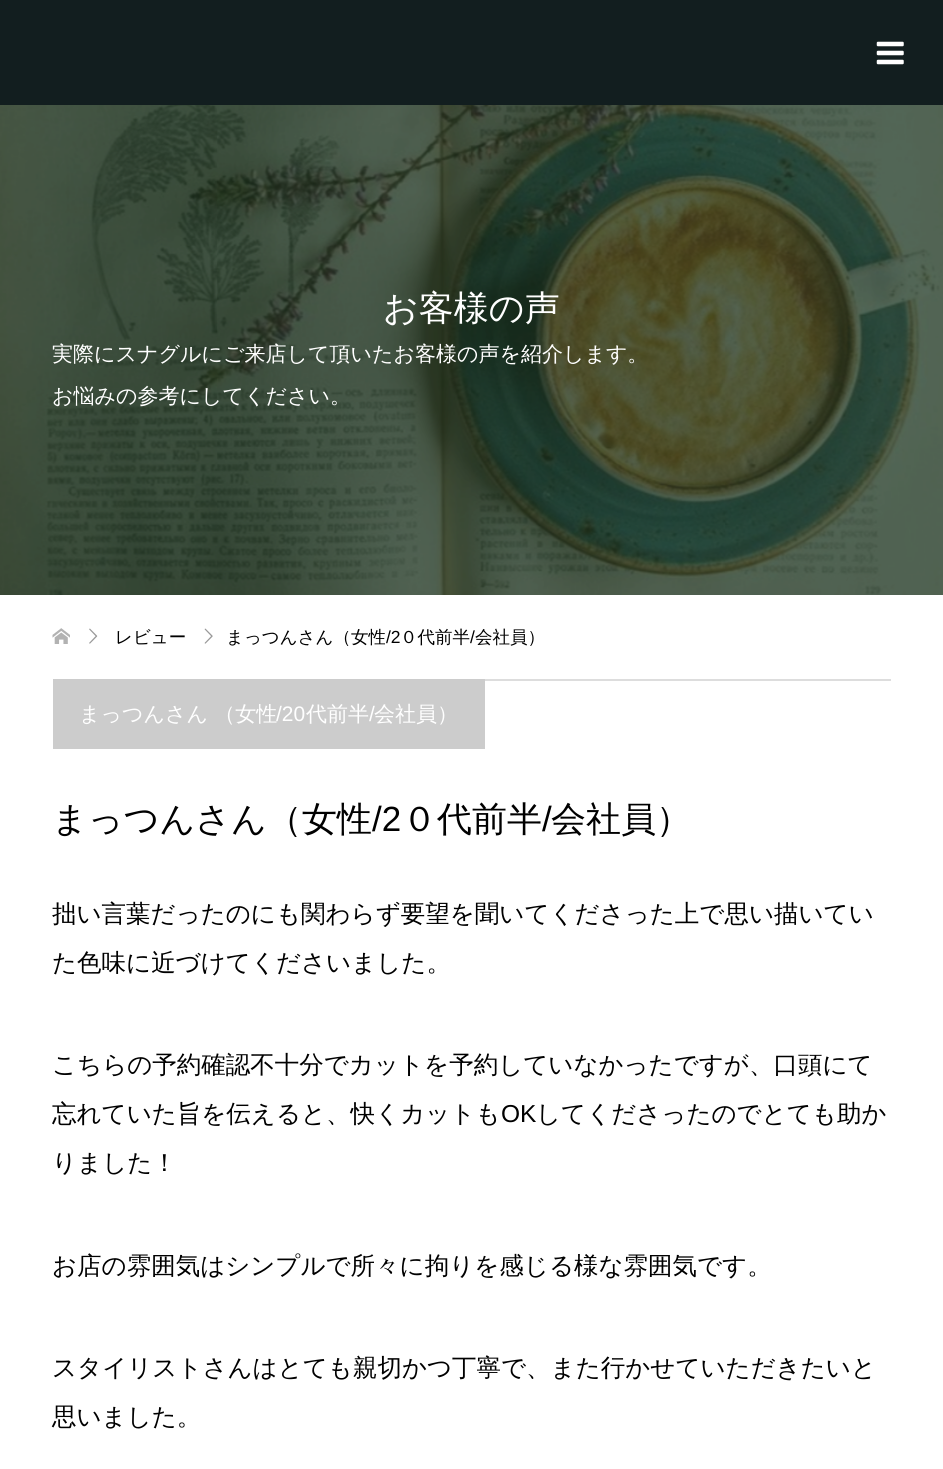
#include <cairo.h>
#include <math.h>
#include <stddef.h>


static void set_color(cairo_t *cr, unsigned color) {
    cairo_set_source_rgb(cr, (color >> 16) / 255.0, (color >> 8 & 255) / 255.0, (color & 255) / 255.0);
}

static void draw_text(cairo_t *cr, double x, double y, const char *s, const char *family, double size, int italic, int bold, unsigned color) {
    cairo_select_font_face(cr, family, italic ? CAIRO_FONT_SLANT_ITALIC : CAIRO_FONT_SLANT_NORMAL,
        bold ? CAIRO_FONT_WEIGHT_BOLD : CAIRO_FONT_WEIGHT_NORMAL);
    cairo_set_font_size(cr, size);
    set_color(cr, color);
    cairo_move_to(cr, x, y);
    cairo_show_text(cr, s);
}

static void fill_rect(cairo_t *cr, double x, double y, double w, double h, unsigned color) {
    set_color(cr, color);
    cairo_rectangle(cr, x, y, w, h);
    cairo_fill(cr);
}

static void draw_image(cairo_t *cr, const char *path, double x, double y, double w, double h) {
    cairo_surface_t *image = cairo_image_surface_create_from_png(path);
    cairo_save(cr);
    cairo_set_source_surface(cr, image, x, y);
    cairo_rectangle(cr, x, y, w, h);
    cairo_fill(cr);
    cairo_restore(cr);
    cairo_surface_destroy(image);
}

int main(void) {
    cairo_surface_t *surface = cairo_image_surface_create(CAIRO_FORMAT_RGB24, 943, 1469);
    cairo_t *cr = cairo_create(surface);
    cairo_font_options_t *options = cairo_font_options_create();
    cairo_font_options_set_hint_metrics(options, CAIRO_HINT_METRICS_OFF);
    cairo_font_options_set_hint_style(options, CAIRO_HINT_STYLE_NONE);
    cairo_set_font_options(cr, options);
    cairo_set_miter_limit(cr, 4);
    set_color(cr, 0xFFFFFF);
    cairo_paint(cr);
    fill_rect(cr, 0, 0, 943, 105, 0x121E1F);
    draw_image(cr, "assets/img1.png", 876, 41, 28, 24);
    draw_image(cr, "assets/img2.png", 0, 105, 943, 490);
    draw_text(cr, 383, 320, "お客様の声", "WenQuanYi Zen Hei Medium", 35, 0, 0, 0xFFFFFF);
    draw_text(cr, 52, 361, "実際にスナグルにご来店して頂いたお客様の声を紹介します。", "WenQuanYi Zen Hei Medium", 21, 0, 0, 0xFFFFFF);
    draw_text(cr, 52, 403, "お悩みの参考にしてください。", "WenQuanYi Zen Hei Medium", 21, 0, 0, 0xFFFFFF);
    draw_image(cr, "assets/img3.png", 52, 628, 18, 16);
    draw_image(cr, "assets/img4.png", 89, 628, 9, 16);
    draw_text(cr, 115, 643, "レビュー", "WenQuanYi Zen Hei Medium", 17.5, 0, 0, 0x000000);
    draw_image(cr, "assets/img5.png", 204, 628, 9, 16);
    draw_text(cr, 226, 643, "まっつんさん（女性", "WenQuanYi Zen Hei Medium", 17.5, 0, 0, 0x000000);
    draw_text(cr, 386, 643, "/2", "Liberation Sans", 17.5, 0, 0, 0x000000);
    draw_text(cr, 400, 643, "０代前半", "WenQuanYi Zen Hei Medium", 17.5, 0, 0, 0x000000);
    draw_text(cr, 470, 643, "/", "Liberation Sans", 17.5, 0, 0, 0x000000);
    draw_text(cr, 475, 643, "会社員）", "WenQuanYi Zen Hei Medium", 17.5, 0, 0, 0x000000);
    fill_rect(cr, 485, 679, 406, 2, 0xDDDDDD);
    fill_rect(cr, 53, 679, 432, 70, 0xCCCCCC);
    draw_text(cr, 79, 721, "まっつんさん （女性", "WenQuanYi Zen Hei Medium", 21, 0, 0, 0xFFFFFF);
    draw_text(cr, 276, 721, "/20", "Liberation Sans", 21, 0, 0, 0xFFFFFF);
    draw_text(cr, 306, 721, "代前半", "WenQuanYi Zen Hei Medium", 21, 0, 0, 0xFFFFFF);
    draw_text(cr, 369, 721, "/", "Liberation Sans", 21, 0, 0, 0xFFFFFF);
    draw_text(cr, 374, 721, "会社員）", "WenQuanYi Zen Hei Medium", 21, 0, 0, 0xFFFFFF);
    draw_text(cr, 52, 831, "まっつんさん（女性", "WenQuanYi Zen Hei Medium", 35, 0, 0, 0x000000);
    draw_text(cr, 372, 831, "/2", "Liberation Sans", 35, 0, 0, 0x000000);
    draw_text(cr, 402, 831, "０代前半", "WenQuanYi Zen Hei Medium", 35, 0, 0, 0x000000);
    draw_text(cr, 542, 831, "/", "Liberation Sans", 35, 0, 0, 0x000000);
    draw_text(cr, 551, 831, "会社員）", "WenQuanYi Zen Hei Medium", 35, 0, 0, 0x000000);
    draw_text(cr, 52, 922, "拙い言葉だったのにも関わらず要望を聞いてくださった上で思い描いてい", "WenQuanYi Zen Hei Medium", 24.5, 0, 0, 0x000000);
    draw_text(cr, 52, 971, "た色味に近づけてくださいました。", "WenQuanYi Zen Hei Medium", 24.5, 0, 0, 0x000000);
    draw_text(cr, 52, 1073, "こちらの予約確認不十分でカットを予約していなかったですが、口頭にて", "WenQuanYi Zen Hei Medium", 24.5, 0, 0, 0x000000);
    draw_text(cr, 52, 1122, "忘れていた旨を伝えると、快くカットも", "WenQuanYi Zen Hei Medium", 24.5, 0, 0, 0x000000);
    draw_text(cr, 501, 1122, "OK", "Liberation Sans", 24.5, 0, 0, 0x000000);
    draw_text(cr, 536, 1122, "してくださったのでとても助か", "WenQuanYi Zen Hei Medium", 24.5, 0, 0, 0x000000);
    draw_text(cr, 52, 1171, "りました！", "WenQuanYi Zen Hei Medium", 24.5, 0, 0, 0x000000);
    draw_text(cr, 52, 1274, "お店の雰囲気はシンプルで所々に拘りを感じる様な雰囲気です。", "WenQuanYi Zen Hei Medium", 24.5, 0, 0, 0x000000);
    draw_text(cr, 52, 1376, "スタイリストさんはとても親切かつ丁寧で、また行かせていただきたいと", "WenQuanYi Zen Hei Medium", 24.5, 0, 0, 0x000000);
    draw_text(cr, 52, 1425, "思いました。", "WenQuanYi Zen Hei Medium", 24.5, 0, 0, 0x000000);
    cairo_surface_write_to_png(surface, "output.png");
    cairo_font_options_destroy(options);
    cairo_destroy(cr);
    cairo_surface_destroy(surface);
    return 0;
}
